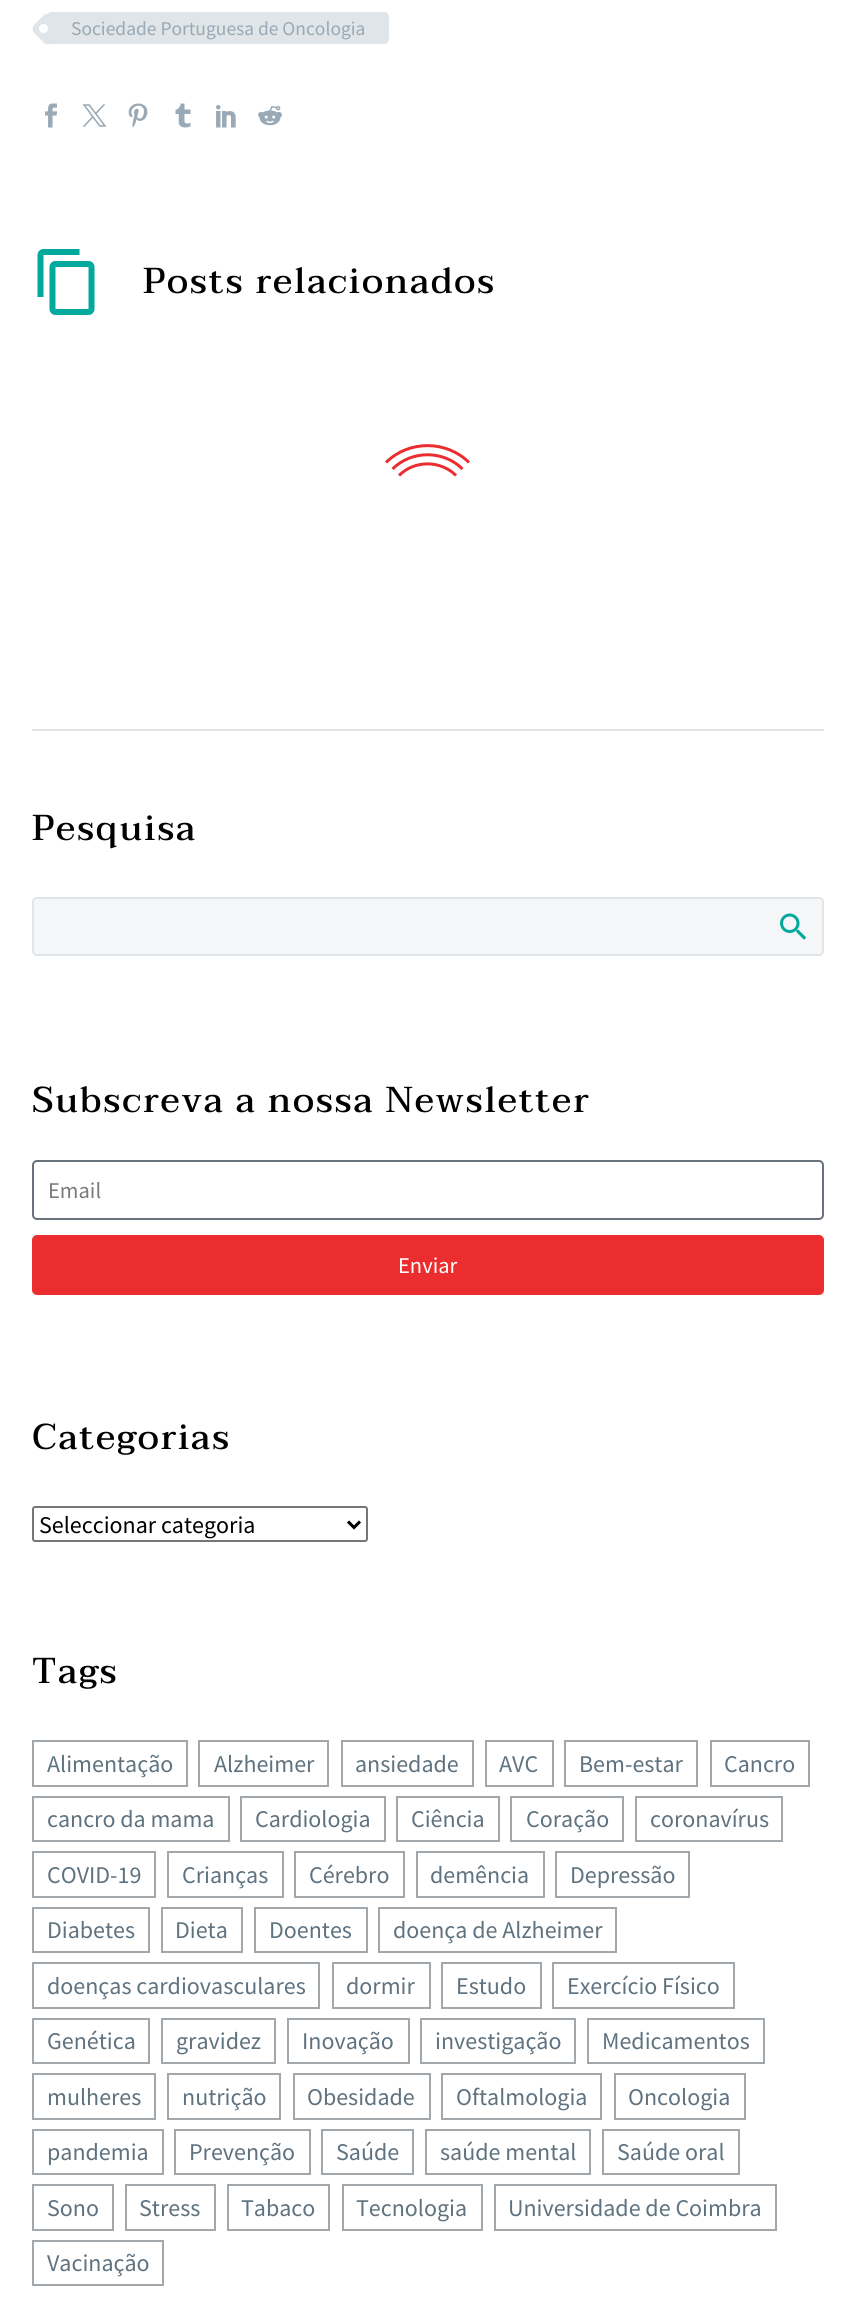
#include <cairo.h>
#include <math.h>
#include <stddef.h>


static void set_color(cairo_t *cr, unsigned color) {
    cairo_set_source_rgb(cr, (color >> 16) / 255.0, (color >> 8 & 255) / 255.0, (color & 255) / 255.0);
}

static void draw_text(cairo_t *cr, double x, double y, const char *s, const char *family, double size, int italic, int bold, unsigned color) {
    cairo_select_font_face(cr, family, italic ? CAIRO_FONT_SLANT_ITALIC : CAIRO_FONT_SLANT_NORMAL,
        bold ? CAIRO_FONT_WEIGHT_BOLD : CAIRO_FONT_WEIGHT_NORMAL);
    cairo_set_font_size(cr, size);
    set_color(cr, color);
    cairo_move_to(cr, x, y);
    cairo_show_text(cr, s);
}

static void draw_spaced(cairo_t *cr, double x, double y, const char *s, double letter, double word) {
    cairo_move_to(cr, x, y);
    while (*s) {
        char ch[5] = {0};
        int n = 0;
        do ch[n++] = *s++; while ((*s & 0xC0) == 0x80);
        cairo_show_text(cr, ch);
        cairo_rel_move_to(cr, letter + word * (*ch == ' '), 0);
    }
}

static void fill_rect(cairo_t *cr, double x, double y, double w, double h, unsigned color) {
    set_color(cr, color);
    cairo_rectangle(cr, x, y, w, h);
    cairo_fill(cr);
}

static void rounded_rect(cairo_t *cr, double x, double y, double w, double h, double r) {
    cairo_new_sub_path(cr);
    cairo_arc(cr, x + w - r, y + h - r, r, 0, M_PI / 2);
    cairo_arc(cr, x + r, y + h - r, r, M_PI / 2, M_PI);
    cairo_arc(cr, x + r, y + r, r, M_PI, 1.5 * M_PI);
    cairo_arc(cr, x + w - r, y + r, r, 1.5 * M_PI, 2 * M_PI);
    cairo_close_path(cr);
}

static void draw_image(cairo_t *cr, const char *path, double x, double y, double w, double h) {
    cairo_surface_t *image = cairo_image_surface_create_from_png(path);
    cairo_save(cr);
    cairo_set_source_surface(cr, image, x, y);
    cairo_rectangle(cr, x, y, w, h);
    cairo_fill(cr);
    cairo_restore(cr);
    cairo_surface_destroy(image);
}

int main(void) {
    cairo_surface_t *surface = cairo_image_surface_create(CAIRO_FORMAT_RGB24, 855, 2319);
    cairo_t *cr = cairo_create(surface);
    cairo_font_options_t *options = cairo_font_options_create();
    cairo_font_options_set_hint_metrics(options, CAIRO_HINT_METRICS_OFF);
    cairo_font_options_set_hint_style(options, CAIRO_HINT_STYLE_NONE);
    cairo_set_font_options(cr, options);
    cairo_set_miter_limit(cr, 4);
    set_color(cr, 0xFFFFFF);
    cairo_paint(cr);
    set_color(cr, 0xDFE5E8);
    rounded_rect(cr, 47, 12, 342, 32, 5);
    cairo_fill(cr);
    cairo_new_path(cr);
    cairo_move_to(cr, 52.5, 15.5);
    cairo_line_to(cr, 61.5, 24.5);
    cairo_curve_to(cr, 64, 27, 64, 31, 61.5, 33.5);
    cairo_line_to(cr, 52.5, 42.5);
    cairo_curve_to(cr, 50, 45, 46, 45, 43.5, 42.5);
    cairo_line_to(cr, 34.5, 33.5);
    cairo_curve_to(cr, 32, 31, 32, 27, 34.5, 24.5);
    cairo_line_to(cr, 43.5, 15.5);
    cairo_curve_to(cr, 46, 13, 50, 13, 52.5, 15.5);
    cairo_close_path(cr);
    cairo_fill(cr);
    draw_text(cr, 71, 35, "Sociedade Portuguesa de Oncologia", "Source Sans Pro", 19.5, 0, 0, 0x99A9B5);
    set_color(cr, 0xFFFFFF);
    cairo_new_path(cr);
    cairo_arc(cr, 43.5, 28.5, 4.5, 0, 2 * M_PI);
    cairo_fill(cr);
    draw_image(cr, "assets/img1.png", 45, 103, 12, 25);
    draw_image(cr, "assets/img2.png", 82, 104, 25, 23);
    draw_image(cr, "assets/img3.png", 128, 103, 20, 25);
    draw_image(cr, "assets/img4.png", 175, 103, 16, 25);
    draw_image(cr, "assets/img5.png", 216, 105, 20, 23);
    draw_image(cr, "assets/img6.png", 258, 106, 24, 20);
    fill_rect(cr, 32, 729, 792, 2, 0xDFE5E8);
    draw_image(cr, "assets/img7.png", 37, 249, 58, 66);
    cairo_select_font_face(cr, "Taviraj Medium", CAIRO_FONT_SLANT_NORMAL, CAIRO_FONT_WEIGHT_NORMAL);
    cairo_set_font_size(cr, 36);
    set_color(cr, 0x000000);
    draw_spaced(cr, 143, 293, "Posts relacionados", 1.8, 0);
    cairo_new_path(cr);
    cairo_move_to(cr, 386, 462.5);
    cairo_curve_to(cr, 408.5, 440, 446.5, 440, 469, 462.5);
    set_color(cr, 0xEC2D2F);
    cairo_set_line_width(cr, 3);
    cairo_stroke(cr);
    cairo_new_path(cr);
    cairo_move_to(cr, 392.5, 469);
    cairo_curve_to(cr, 411.5, 450, 443.5, 450, 462.5, 469);
    cairo_stroke(cr);
    cairo_new_path(cr);
    cairo_move_to(cr, 399, 475.5);
    cairo_curve_to(cr, 414.5, 460, 440.5, 460, 456, 475.5);
    cairo_stroke(cr);
    set_color(cr, 0x000000);
    draw_spaced(cr, 32, 840, "Pesquisa", 1.8, 0);
    set_color(cr, 0xF4F6F7);
    rounded_rect(cr, 33, 898, 790, 57, 4);
    cairo_fill_preserve(cr);
    set_color(cr, 0xDFE5E8);
    cairo_set_line_width(cr, 2);
    cairo_stroke(cr);
    draw_image(cr, "assets/img8.png", 780, 913, 27, 27);
    set_color(cr, 0x000000);
    draw_spaced(cr, 32, 1112, "Subscreva a nossa Newsletter", 1.8, 0);
    rounded_rect(cr, 33, 1161, 790, 58, 4);
    set_color(cr, 0x69727D);
    cairo_stroke(cr);
    draw_text(cr, 48, 1198, "Email", "Source Sans Pro", 22.5, 0, 0, 0x797A7C);
    set_color(cr, 0xEC2D2F);
    rounded_rect(cr, 32, 1235, 792, 60, 5);
    cairo_fill(cr);
    draw_text(cr, 398, 1273, "Enviar", "Source Sans Pro", 22.5, 0, 0, 0xFFFFFF);
    cairo_select_font_face(cr, "Taviraj Medium", CAIRO_FONT_SLANT_NORMAL, CAIRO_FONT_WEIGHT_NORMAL);
    cairo_set_font_size(cr, 36);
    set_color(cr, 0x000000);
    draw_spaced(cr, 32, 1449, "Categorias", 1.8, 0);
    rounded_rect(cr, 33, 1507, 334, 34, 2);
    set_color(cr, 0x767676);
    cairo_stroke(cr);
    cairo_new_path(cr);
    cairo_move_to(cr, 348, 1521.5);
    cairo_line_to(cr, 354, 1527.5);
    cairo_line_to(cr, 360, 1521.5);
    set_color(cr, 0x000000);
    cairo_set_line_width(cr, 3);
    cairo_stroke(cr);
    draw_text(cr, 39, 1533, "Seleccionar categoria", "Source Sans Pro", 24, 0, 0, 0x000000);
    cairo_select_font_face(cr, "Taviraj Medium", CAIRO_FONT_SLANT_NORMAL, CAIRO_FONT_WEIGHT_NORMAL);
    cairo_set_font_size(cr, 36);
    draw_spaced(cr, 32, 1683, "Tags", 1.8, 0);
    cairo_rectangle(cr, 33, 1741, 154, 45);
    set_color(cr, 0xA2A7AB);
    cairo_set_line_width(cr, 2);
    cairo_stroke(cr);
    draw_text(cr, 47, 1772, "Alimentação", "Source Sans Pro", 24, 0, 0, 0x5F727F);
    cairo_rectangle(cr, 199, 1741, 129, 45);
    set_color(cr, 0xA2A7AB);
    cairo_stroke(cr);
    draw_text(cr, 214, 1772, "Alzheimer", "Source Sans Pro", 24, 0, 0, 0x5F727F);
    cairo_rectangle(cr, 342, 1741, 131, 45);
    set_color(cr, 0xA2A7AB);
    cairo_stroke(cr);
    draw_text(cr, 355, 1772, "ansiedade", "Source Sans Pro", 24, 0, 0, 0x5F727F);
    cairo_rectangle(cr, 486, 1741, 67, 45);
    set_color(cr, 0xA2A7AB);
    cairo_stroke(cr);
    draw_text(cr, 499, 1772, "AVC", "Source Sans Pro", 24, 0, 0, 0x5F727F);
    cairo_rectangle(cr, 565, 1741, 132, 45);
    set_color(cr, 0xA2A7AB);
    cairo_stroke(cr);
    draw_text(cr, 579, 1772, "Bem-estar", "Source Sans Pro", 24, 0, 0, 0x5F727F);
    cairo_rectangle(cr, 711, 1741, 98, 45);
    set_color(cr, 0xA2A7AB);
    cairo_stroke(cr);
    draw_text(cr, 724, 1772, "Cancro", "Source Sans Pro", 24, 0, 0, 0x5F727F);
    cairo_rectangle(cr, 33, 1797, 196, 44);
    set_color(cr, 0xA2A7AB);
    cairo_stroke(cr);
    draw_text(cr, 47, 1827, "cancro da mama", "Source Sans Pro", 24, 0, 0, 0x5F727F);
    cairo_rectangle(cr, 241, 1797, 144, 44);
    set_color(cr, 0xA2A7AB);
    cairo_stroke(cr);
    draw_text(cr, 255, 1827, "Cardiologia", "Source Sans Pro", 24, 0, 0, 0x5F727F);
    cairo_rectangle(cr, 397, 1797, 102, 44);
    set_color(cr, 0xA2A7AB);
    cairo_stroke(cr);
    draw_text(cr, 411, 1827, "Ciência", "Source Sans Pro", 24, 0, 0, 0x5F727F);
    cairo_rectangle(cr, 511, 1797, 112, 44);
    set_color(cr, 0xA2A7AB);
    cairo_stroke(cr);
    draw_text(cr, 526, 1827, "Coração", "Source Sans Pro", 24, 0, 0, 0x5F727F);
    cairo_rectangle(cr, 636, 1797, 146, 44);
    set_color(cr, 0xA2A7AB);
    cairo_stroke(cr);
    draw_text(cr, 650, 1827, "coronavírus", "Source Sans Pro", 24, 0, 0, 0x5F727F);
    cairo_rectangle(cr, 33, 1852, 122, 45);
    set_color(cr, 0xA2A7AB);
    cairo_stroke(cr);
    draw_text(cr, 47, 1883, "COVID-19", "Source Sans Pro", 24, 0, 0, 0x5F727F);
    cairo_rectangle(cr, 168, 1852, 115, 45);
    set_color(cr, 0xA2A7AB);
    cairo_stroke(cr);
    draw_text(cr, 182, 1883, "Crianças", "Source Sans Pro", 24, 0, 0, 0x5F727F);
    cairo_rectangle(cr, 295, 1852, 109, 45);
    set_color(cr, 0xA2A7AB);
    cairo_stroke(cr);
    draw_text(cr, 309, 1883, "Cérebro", "Source Sans Pro", 24, 0, 0, 0x5F727F);
    cairo_rectangle(cr, 417, 1852, 127, 45);
    set_color(cr, 0xA2A7AB);
    cairo_stroke(cr);
    draw_text(cr, 430, 1883, "demência", "Source Sans Pro", 24, 0, 0, 0x5F727F);
    cairo_rectangle(cr, 556, 1852, 133, 45);
    set_color(cr, 0xA2A7AB);
    cairo_stroke(cr);
    draw_text(cr, 570, 1883, "Depressão", "Source Sans Pro", 24, 0, 0, 0x5F727F);
    cairo_rectangle(cr, 33, 1908, 116, 44);
    set_color(cr, 0xA2A7AB);
    cairo_stroke(cr);
    draw_text(cr, 47, 1938, "Diabetes", "Source Sans Pro", 24, 0, 0, 0x5F727F);
    cairo_rectangle(cr, 162, 1908, 80, 44);
    set_color(cr, 0xA2A7AB);
    cairo_stroke(cr);
    draw_text(cr, 175, 1938, "Dieta", "Source Sans Pro", 24, 0, 0, 0x5F727F);
    cairo_rectangle(cr, 255, 1908, 112, 44);
    set_color(cr, 0xA2A7AB);
    cairo_stroke(cr);
    draw_text(cr, 269, 1938, "Doentes", "Source Sans Pro", 24, 0, 0, 0x5F727F);
    cairo_rectangle(cr, 379, 1908, 237, 44);
    set_color(cr, 0xA2A7AB);
    cairo_stroke(cr);
    draw_text(cr, 393, 1938, "doença de Alzheimer", "Source Sans Pro", 24, 0, 0, 0x5F727F);
    cairo_rectangle(cr, 33, 1963, 286, 45);
    set_color(cr, 0xA2A7AB);
    cairo_stroke(cr);
    draw_text(cr, 47, 1994, "doenças cardiovasculares", "Source Sans Pro", 24, 0, 0, 0x5F727F);
    cairo_rectangle(cr, 333, 1963, 97, 45);
    set_color(cr, 0xA2A7AB);
    cairo_stroke(cr);
    draw_text(cr, 346, 1994, "dormir", "Source Sans Pro", 24, 0, 0, 0x5F727F);
    cairo_rectangle(cr, 442, 1963, 99, 45);
    set_color(cr, 0xA2A7AB);
    cairo_stroke(cr);
    draw_text(cr, 456, 1994, "Estudo", "Source Sans Pro", 24, 0, 0, 0x5F727F);
    cairo_rectangle(cr, 553, 1963, 181, 45);
    set_color(cr, 0xA2A7AB);
    cairo_stroke(cr);
    draw_text(cr, 567, 1994, "Exercício Físico", "Source Sans Pro", 24, 0, 0, 0x5F727F);
    cairo_rectangle(cr, 33, 2019, 116, 44);
    set_color(cr, 0xA2A7AB);
    cairo_stroke(cr);
    draw_text(cr, 47, 2049, "Genética", "Source Sans Pro", 24, 0, 0, 0x5F727F);
    cairo_rectangle(cr, 162, 2019, 113, 44);
    set_color(cr, 0xA2A7AB);
    cairo_stroke(cr);
    draw_text(cr, 176, 2049, "gravidez", "Source Sans Pro", 24, 0, 0, 0x5F727F);
    cairo_rectangle(cr, 288, 2019, 121, 44);
    set_color(cr, 0xA2A7AB);
    cairo_stroke(cr);
    draw_text(cr, 302, 2049, "Inovação", "Source Sans Pro", 24, 0, 0, 0x5F727F);
    cairo_rectangle(cr, 421, 2019, 154, 44);
    set_color(cr, 0xA2A7AB);
    cairo_stroke(cr);
    draw_text(cr, 435, 2049, "investigação", "Source Sans Pro", 24, 0, 0, 0x5F727F);
    cairo_rectangle(cr, 588, 2019, 176, 44);
    set_color(cr, 0xA2A7AB);
    cairo_stroke(cr);
    draw_text(cr, 602, 2049, "Medicamentos", "Source Sans Pro", 24, 0, 0, 0x5F727F);
    cairo_rectangle(cr, 33, 2074, 122, 45);
    set_color(cr, 0xA2A7AB);
    cairo_stroke(cr);
    draw_text(cr, 47, 2105, "mulheres", "Source Sans Pro", 24, 0, 0, 0x5F727F);
    cairo_rectangle(cr, 168, 2074, 112, 45);
    set_color(cr, 0xA2A7AB);
    cairo_stroke(cr);
    draw_text(cr, 182, 2105, "nutrição", "Source Sans Pro", 24, 0, 0, 0x5F727F);
    cairo_rectangle(cr, 294, 2074, 136, 45);
    set_color(cr, 0xA2A7AB);
    cairo_stroke(cr);
    draw_text(cr, 307, 2105, "Obesidade", "Source Sans Pro", 24, 0, 0, 0x5F727F);
    cairo_rectangle(cr, 442, 2074, 159, 45);
    set_color(cr, 0xA2A7AB);
    cairo_stroke(cr);
    draw_text(cr, 456, 2105, "Oftalmologia", "Source Sans Pro", 24, 0, 0, 0x5F727F);
    cairo_rectangle(cr, 615, 2074, 130, 45);
    set_color(cr, 0xA2A7AB);
    cairo_stroke(cr);
    draw_text(cr, 628, 2105, "Oncologia", "Source Sans Pro", 24, 0, 0, 0x5F727F);
    cairo_rectangle(cr, 33, 2130, 130, 44);
    set_color(cr, 0xA2A7AB);
    cairo_stroke(cr);
    draw_text(cr, 47, 2160, "pandemia", "Source Sans Pro", 24, 0, 0, 0x5F727F);
    cairo_rectangle(cr, 175, 2130, 135, 44);
    set_color(cr, 0xA2A7AB);
    cairo_stroke(cr);
    draw_text(cr, 189, 2160, "Prevenção", "Source Sans Pro", 24, 0, 0, 0x5F727F);
    cairo_rectangle(cr, 322, 2130, 91, 44);
    set_color(cr, 0xA2A7AB);
    cairo_stroke(cr);
    draw_text(cr, 336, 2160, "Saúde", "Source Sans Pro", 24, 0, 0, 0x5F727F);
    cairo_rectangle(cr, 426, 2130, 164, 44);
    set_color(cr, 0xA2A7AB);
    cairo_stroke(cr);
    draw_text(cr, 440, 2160, "saúde mental", "Source Sans Pro", 24, 0, 0, 0x5F727F);
    cairo_rectangle(cr, 603, 2130, 136, 44);
    set_color(cr, 0xA2A7AB);
    cairo_stroke(cr);
    draw_text(cr, 617, 2160, "Saúde oral", "Source Sans Pro", 24, 0, 0, 0x5F727F);
    cairo_rectangle(cr, 33, 2185, 80, 45);
    set_color(cr, 0xA2A7AB);
    cairo_stroke(cr);
    draw_text(cr, 47, 2216, "Sono", "Source Sans Pro", 24, 0, 0, 0x5F727F);
    cairo_rectangle(cr, 126, 2185, 89, 45);
    set_color(cr, 0xA2A7AB);
    cairo_stroke(cr);
    draw_text(cr, 139, 2216, "Stress", "Source Sans Pro", 24, 0, 0, 0x5F727F);
    cairo_rectangle(cr, 228, 2185, 101, 45);
    set_color(cr, 0xA2A7AB);
    cairo_stroke(cr);
    draw_text(cr, 241, 2216, "Tabaco", "Source Sans Pro", 24, 0, 0, 0x5F727F);
    cairo_rectangle(cr, 343, 2185, 139, 45);
    set_color(cr, 0xA2A7AB);
    cairo_stroke(cr);
    draw_text(cr, 356, 2216, "Tecnologia", "Source Sans Pro", 24, 0, 0, 0x5F727F);
    cairo_rectangle(cr, 495, 2185, 281, 45);
    set_color(cr, 0xA2A7AB);
    cairo_stroke(cr);
    draw_text(cr, 508, 2216, "Universidade de Coimbra", "Source Sans Pro", 24, 0, 0, 0x5F727F);
    cairo_rectangle(cr, 33, 2241, 130, 44);
    set_color(cr, 0xA2A7AB);
    cairo_stroke(cr);
    draw_text(cr, 47, 2271, "Vacinação", "Source Sans Pro", 24, 0, 0, 0x5F727F);
    cairo_surface_write_to_png(surface, "output.png");
    cairo_font_options_destroy(options);
    cairo_destroy(cr);
    cairo_surface_destroy(surface);
    return 0;
}
